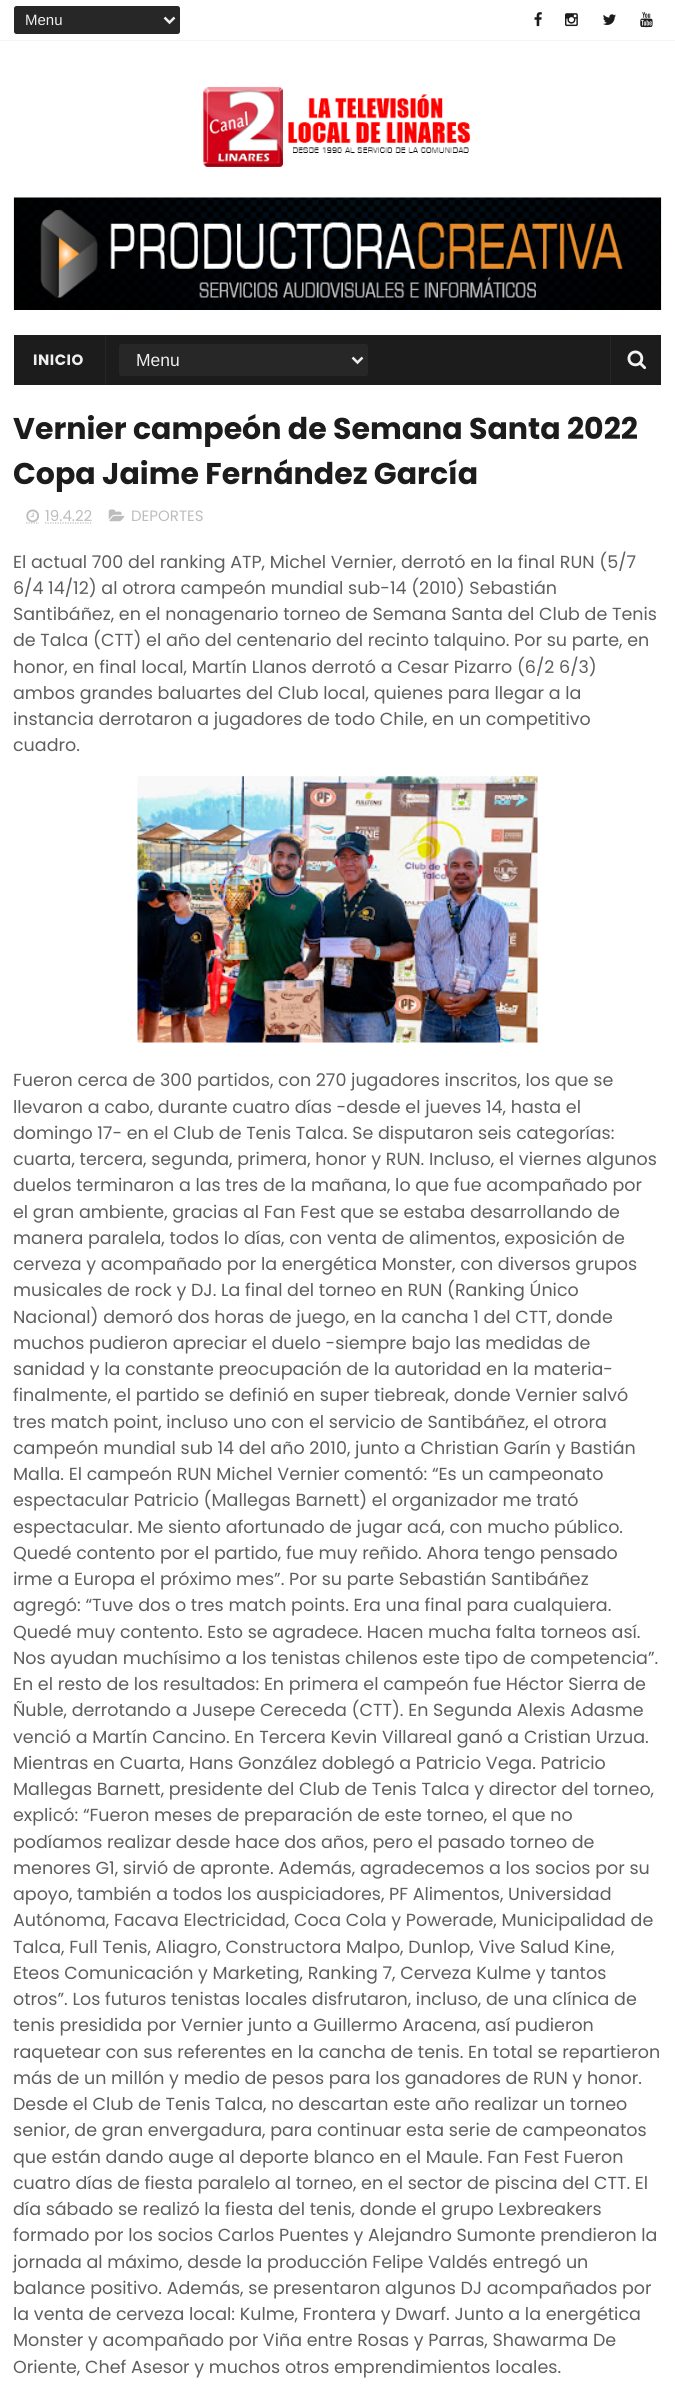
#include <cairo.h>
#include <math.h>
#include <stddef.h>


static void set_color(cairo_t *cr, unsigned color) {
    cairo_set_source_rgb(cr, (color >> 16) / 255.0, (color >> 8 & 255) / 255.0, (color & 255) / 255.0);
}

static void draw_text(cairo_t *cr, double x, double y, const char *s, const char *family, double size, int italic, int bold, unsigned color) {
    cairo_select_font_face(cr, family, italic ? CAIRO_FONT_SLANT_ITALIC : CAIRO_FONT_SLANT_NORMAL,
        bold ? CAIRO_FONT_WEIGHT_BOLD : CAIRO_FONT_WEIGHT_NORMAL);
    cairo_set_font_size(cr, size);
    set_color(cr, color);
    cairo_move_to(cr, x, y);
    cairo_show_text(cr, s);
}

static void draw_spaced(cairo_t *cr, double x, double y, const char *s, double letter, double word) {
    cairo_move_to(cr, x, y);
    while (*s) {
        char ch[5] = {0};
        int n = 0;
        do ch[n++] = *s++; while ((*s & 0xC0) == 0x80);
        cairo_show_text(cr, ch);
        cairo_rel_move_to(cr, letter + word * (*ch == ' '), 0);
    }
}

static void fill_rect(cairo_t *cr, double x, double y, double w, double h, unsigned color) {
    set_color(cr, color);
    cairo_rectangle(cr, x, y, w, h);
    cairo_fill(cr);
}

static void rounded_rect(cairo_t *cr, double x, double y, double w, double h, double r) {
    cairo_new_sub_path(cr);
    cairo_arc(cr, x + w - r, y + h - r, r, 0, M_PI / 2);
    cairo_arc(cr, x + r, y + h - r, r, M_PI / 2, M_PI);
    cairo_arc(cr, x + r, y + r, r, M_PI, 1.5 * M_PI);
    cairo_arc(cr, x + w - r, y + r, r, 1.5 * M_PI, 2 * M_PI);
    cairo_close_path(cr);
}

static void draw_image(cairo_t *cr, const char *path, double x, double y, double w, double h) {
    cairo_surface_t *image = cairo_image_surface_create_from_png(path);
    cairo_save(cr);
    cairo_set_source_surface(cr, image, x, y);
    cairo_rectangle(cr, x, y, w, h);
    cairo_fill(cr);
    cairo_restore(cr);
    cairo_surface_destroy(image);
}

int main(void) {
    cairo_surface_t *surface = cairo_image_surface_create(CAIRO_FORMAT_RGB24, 675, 2404);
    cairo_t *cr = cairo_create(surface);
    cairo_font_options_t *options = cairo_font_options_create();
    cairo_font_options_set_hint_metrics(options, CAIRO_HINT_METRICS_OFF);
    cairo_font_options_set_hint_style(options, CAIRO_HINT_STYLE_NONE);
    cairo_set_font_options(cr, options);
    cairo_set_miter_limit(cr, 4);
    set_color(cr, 0xFFFFFF);
    cairo_paint(cr);
    fill_rect(cr, 0, 40, 675, 1, 0xF5F5F5);
    set_color(cr, 0x272727);
    rounded_rect(cr, 14, 6, 166, 28, 2.5);
    cairo_fill(cr);
    cairo_new_path(cr);
    cairo_move_to(cr, 164.5, 17.5);
    cairo_line_to(cr, 169.5, 22.5);
    cairo_line_to(cr, 174.5, 17.5);
    set_color(cr, 0xEEEEEE);
    cairo_set_line_width(cr, 2.5);
    cairo_stroke(cr);
    draw_text(cr, 25, 25, "Menu", "Liberation Sans", 15, 0, 0, 0xEEEEEE);
    draw_image(cr, "assets/img1.png", 534, 12, 8, 15);
    draw_image(cr, "assets/img2.png", 565, 13, 13, 14);
    draw_image(cr, "assets/img3.png", 603, 14, 13, 11);
    draw_image(cr, "assets/img4.png", 640, 12, 13, 16);
    draw_image(cr, "assets/img5.png", 203, 86, 267, 81);
    draw_image(cr, "assets/img6.png", 13, 197, 649, 113);
    fill_rect(cr, 14, 335, 647, 50, 0x1C1C1C);
    fill_rect(cr, 105, 335, 1, 50, 0x272727);
    cairo_select_font_face(cr, "Poppins", CAIRO_FONT_SLANT_NORMAL, CAIRO_FONT_WEIGHT_BOLD);
    set_color(cr, 0xEEEEEE);
    draw_spaced(cr, 33, 365, "INICIO", 0.5, 0);
    set_color(cr, 0x272727);
    rounded_rect(cr, 119, 344, 249, 32, 2.5);
    cairo_fill(cr);
    cairo_new_path(cr);
    cairo_move_to(cr, 352.5, 357.5);
    cairo_line_to(cr, 357.5, 362.5);
    cairo_line_to(cr, 362.5, 357.5);
    set_color(cr, 0xEEEEEE);
    cairo_stroke(cr);
    draw_text(cr, 136, 366, "Menu", "Liberation Sans", 17.5, 0, 0, 0xEEEEEE);
    fill_rect(cr, 610, 335, 1, 50, 0x272727);
    draw_image(cr, "assets/img7.png", 627, 350, 20, 20);
    draw_text(cr, 13, 439, "Vernier campeón de Semana Santa 2022", "Poppins", 30, 0, 1, 0x1C1C1C);
    draw_text(cr, 13, 484, "Copa Jaime Fernández García", "Poppins", 30, 0, 1, 0x1C1C1C);
    cairo_new_path(cr);
    cairo_move_to(cr, 26, 523);
    cairo_line_to(cr, 39, 523);
    set_color(cr, 0xBDBDBD);
    cairo_set_line_width(cr, 1.2);
    cairo_set_dash(cr, (double[]){1.25, 1.25}, 2, 0);
    cairo_stroke(cr);
    draw_image(cr, "assets/img8.png", 26, 509, 13, 14);
    draw_text(cr, 45, 521, "19.4.22", "Poppins", 15, 0, 0, 0xBDBDBD);
    cairo_new_path(cr);
    cairo_move_to(cr, 45, 523);
    cairo_line_to(cr, 92.5, 523);
    cairo_stroke(cr);
    draw_image(cr, "assets/img9.png", 108, 509, 17, 13);
    draw_text(cr, 131, 521, "DEPORTES", "Poppins", 15, 0, 0, 0xBDBDBD);
    draw_text(cr, 13, 568, "El actual 700 del ranking ATP, Michel Vernier, derrotó en la final RUN (5/7", "Poppins", 17.5, 0, 0, 0x5E5E5E);
    draw_text(cr, 13, 594, "6/4 14/12) al otrora campeón mundial sub-14 (2010) Sebastián", "Poppins", 17.5, 0, 0, 0x5E5E5E);
    draw_text(cr, 13, 620, "Santibáñez, en el nonagenario torneo de Semana Santa del Club de Tenis", "Poppins", 17.5, 0, 0, 0x5E5E5E);
    draw_text(cr, 13, 646, "de Talca (CTT) el año del centenario del recinto talquino. Por su parte, en", "Poppins", 17.5, 0, 0, 0x5E5E5E);
    draw_text(cr, 13, 673, "honor, en final local, Martín Llanos derrotó a Cesar Pizarro (6/2 6/3)", "Poppins", 17.5, 0, 0, 0x5E5E5E);
    draw_text(cr, 13, 699, "ambos grandes baluartes del Club local, quienes para llegar a la", "Poppins", 17.5, 0, 0, 0x5E5E5E);
    draw_text(cr, 13, 725, "instancia derrotaron a jugadores de todo Chile, en un competitivo", "Poppins", 17.5, 0, 0, 0x5E5E5E);
    draw_text(cr, 13, 751, "cuadro.", "Poppins", 17.5, 0, 0, 0x5E5E5E);
    draw_image(cr, "assets/img10.png", 137, 776, 401, 267);
    draw_text(cr, 13, 1086, "Fueron cerca de 300 partidos, con 270 jugadores inscritos, los que se", "Poppins", 17.5, 0, 0, 0x5E5E5E);
    draw_text(cr, 13, 1113, "llevaron a cabo, durante cuatro días -desde el jueves 14, hasta el", "Poppins", 17.5, 0, 0, 0x5E5E5E);
    draw_text(cr, 13, 1139, "domingo 17- en el Club de Tenis Talca. Se disputaron seis categorías:", "Poppins", 17.5, 0, 0, 0x5E5E5E);
    draw_text(cr, 13, 1165, "cuarta, tercera, segunda, primera, honor y RUN. Incluso, el viernes algunos", "Poppins", 17.5, 0, 0, 0x5E5E5E);
    draw_text(cr, 13, 1191, "duelos terminaron a las tres de la mañana, lo que fue acompañado por", "Poppins", 17.5, 0, 0, 0x5E5E5E);
    draw_text(cr, 13, 1218, "el gran ambiente, gracias al Fan Fest que se estaba desarrollando de", "Poppins", 17.5, 0, 0, 0x5E5E5E);
    draw_text(cr, 13, 1244, "manera paralela, todos lo días, con venta de alimentos, exposición de", "Poppins", 17.5, 0, 0, 0x5E5E5E);
    draw_text(cr, 13, 1270, "cerveza y acompañado por la energética Monster, con diversos grupos", "Poppins", 17.5, 0, 0, 0x5E5E5E);
    draw_text(cr, 13, 1296, "musicales de rock y DJ. La final del torneo en RUN (Ranking Único", "Poppins", 17.5, 0, 0, 0x5E5E5E);
    draw_text(cr, 13, 1323, "Nacional) demoró dos horas de juego, en la cancha 1 del CTT, donde", "Poppins", 17.5, 0, 0, 0x5E5E5E);
    draw_text(cr, 13, 1349, "muchos pudieron apreciar el duelo -siempre bajo las medidas de", "Poppins", 17.5, 0, 0, 0x5E5E5E);
    draw_text(cr, 13, 1375, "sanidad y la constante preocupación de la autoridad en la materia-", "Poppins", 17.5, 0, 0, 0x5E5E5E);
    draw_text(cr, 13, 1401, "finalmente, el partido se definió en super tiebreak, donde Vernier salvó", "Poppins", 17.5, 0, 0, 0x5E5E5E);
    draw_text(cr, 13, 1428, "tres match point, incluso uno con el servicio de Santibáñez, el otrora", "Poppins", 17.5, 0, 0, 0x5E5E5E);
    draw_text(cr, 13, 1454, "campeón mundial sub 14 del año 2010, junto a Christian Garín y Bastián", "Poppins", 17.5, 0, 0, 0x5E5E5E);
    draw_text(cr, 13, 1480, "Malla. El campeón RUN Michel Vernier comentó: “Es un campeonato", "Poppins", 17.5, 0, 0, 0x5E5E5E);
    draw_text(cr, 13, 1506, "espectacular Patricio (Mallegas Barnett) el organizador me trató", "Poppins", 17.5, 0, 0, 0x5E5E5E);
    draw_text(cr, 13, 1533, "espectacular. Me siento afortunado de jugar acá, con mucho público.", "Poppins", 17.5, 0, 0, 0x5E5E5E);
    draw_text(cr, 13, 1559, "Quedé contento por el partido, fue muy reñido. Ahora tengo pensado", "Poppins", 17.5, 0, 0, 0x5E5E5E);
    draw_text(cr, 13, 1585, "irme a Europa el próximo mes”. Por su parte Sebastián Santibáñez", "Poppins", 17.5, 0, 0, 0x5E5E5E);
    draw_text(cr, 13, 1611, "agregó: “Tuve dos o tres match points. Era una final para cualquiera.", "Poppins", 17.5, 0, 0, 0x5E5E5E);
    draw_text(cr, 13, 1638, "Quedé muy contento. Esto se agradece. Hacen mucha falta torneos así.", "Poppins", 17.5, 0, 0, 0x5E5E5E);
    draw_text(cr, 13, 1664, "Nos ayudan muchísimo a los tenistas chilenos este tipo de competencia”.", "Poppins", 17.5, 0, 0, 0x5E5E5E);
    draw_text(cr, 13, 1690, "En el resto de los resultados: En primera el campeón fue Héctor Sierra de", "Poppins", 17.5, 0, 0, 0x5E5E5E);
    draw_text(cr, 13, 1716, "Ñuble, derrotando a Jusepe Cereceda (CTT). En Segunda Alexis Adasme", "Poppins", 17.5, 0, 0, 0x5E5E5E);
    draw_text(cr, 13, 1743, "venció a Martín Cancino. En Tercera Kevin Villareal ganó a Cristian Urzua.", "Poppins", 17.5, 0, 0, 0x5E5E5E);
    draw_text(cr, 13, 1769, "Mientras en Cuarta, Hans González doblegó a Patricio Vega. Patricio", "Poppins", 17.5, 0, 0, 0x5E5E5E);
    draw_text(cr, 13, 1795, "Mallegas Barnett, presidente del Club de Tenis Talca y director del torneo,", "Poppins", 17.5, 0, 0, 0x5E5E5E);
    draw_text(cr, 13, 1821, "explicó: “Fueron meses de preparación de este torneo, el que no", "Poppins", 17.5, 0, 0, 0x5E5E5E);
    draw_text(cr, 13, 1848, "podíamos realizar desde hace dos años, pero el pasado torneo de", "Poppins", 17.5, 0, 0, 0x5E5E5E);
    draw_text(cr, 13, 1874, "menores G1, sirvió de apronte. Además, agradecemos a los socios por su", "Poppins", 17.5, 0, 0, 0x5E5E5E);
    draw_text(cr, 13, 1900, "apoyo, también a todos los auspiciadores, PF Alimentos, Universidad", "Poppins", 17.5, 0, 0, 0x5E5E5E);
    draw_text(cr, 13, 1926, "Autónoma, Facava Electricidad, Coca Cola y Powerade, Municipalidad de", "Poppins", 17.5, 0, 0, 0x5E5E5E);
    draw_text(cr, 13, 1953, "Talca, Full Tenis, Aliagro, Constructora Malpo, Dunlop, Vive Salud Kine,", "Poppins", 17.5, 0, 0, 0x5E5E5E);
    draw_text(cr, 13, 1979, "Eteos Comunicación y Marketing, Ranking 7, Cerveza Kulme y tantos", "Poppins", 17.5, 0, 0, 0x5E5E5E);
    draw_text(cr, 13, 2005, "otros”. Los futuros tenistas locales disfrutaron, incluso, de una clínica de", "Poppins", 17.5, 0, 0, 0x5E5E5E);
    draw_text(cr, 13, 2031, "tenis presidida por Vernier junto a Guillermo Aracena, así pudieron", "Poppins", 17.5, 0, 0, 0x5E5E5E);
    draw_text(cr, 13, 2058, "raquetear con sus referentes en la cancha de tenis. En total se repartieron", "Poppins", 17.5, 0, 0, 0x5E5E5E);
    draw_text(cr, 13, 2084, "más de un millón y medio de pesos para los ganadores de RUN y honor.", "Poppins", 17.5, 0, 0, 0x5E5E5E);
    draw_text(cr, 13, 2110, "Desde el Club de Tenis Talca, no descartan este año realizar un torneo", "Poppins", 17.5, 0, 0, 0x5E5E5E);
    draw_text(cr, 13, 2136, "senior, de gran envergadura, para continuar esta serie de campeonatos", "Poppins", 17.5, 0, 0, 0x5E5E5E);
    draw_text(cr, 13, 2163, "que están dando auge al deporte blanco en el Maule. Fan Fest Fueron", "Poppins", 17.5, 0, 0, 0x5E5E5E);
    draw_text(cr, 13, 2189, "cuatro días de fiesta paralelo al torneo, en el sector de piscina del CTT. El", "Poppins", 17.5, 0, 0, 0x5E5E5E);
    draw_text(cr, 13, 2215, "día sábado se realizó la fiesta del tenis, donde el grupo Lexbreakers", "Poppins", 17.5, 0, 0, 0x5E5E5E);
    draw_text(cr, 13, 2241, "formado por los socios Carlos Puentes y Alejandro Sumonte prendieron la", "Poppins", 17.5, 0, 0, 0x5E5E5E);
    draw_text(cr, 13, 2268, "jornada al máximo, desde la producción Felipe Valdés entregó un", "Poppins", 17.5, 0, 0, 0x5E5E5E);
    draw_text(cr, 13, 2294, "balance positivo. Además, se presentaron algunos DJ acompañados por", "Poppins", 17.5, 0, 0, 0x5E5E5E);
    draw_text(cr, 13, 2320, "la venta de cerveza local: Kulme, Frontera y Dwarf. Junto a la energética", "Poppins", 17.5, 0, 0, 0x5E5E5E);
    draw_text(cr, 13, 2346, "Monster y acompañado por Viña entre Rosas y Parras, Shawarma De", "Poppins", 17.5, 0, 0, 0x5E5E5E);
    draw_text(cr, 13, 2373, "Oriente, Chef Asesor y muchos otros emprendimientos locales.", "Poppins", 17.5, 0, 0, 0x5E5E5E);
    cairo_surface_write_to_png(surface, "output.png");
    cairo_font_options_destroy(options);
    cairo_destroy(cr);
    cairo_surface_destroy(surface);
    return 0;
}
